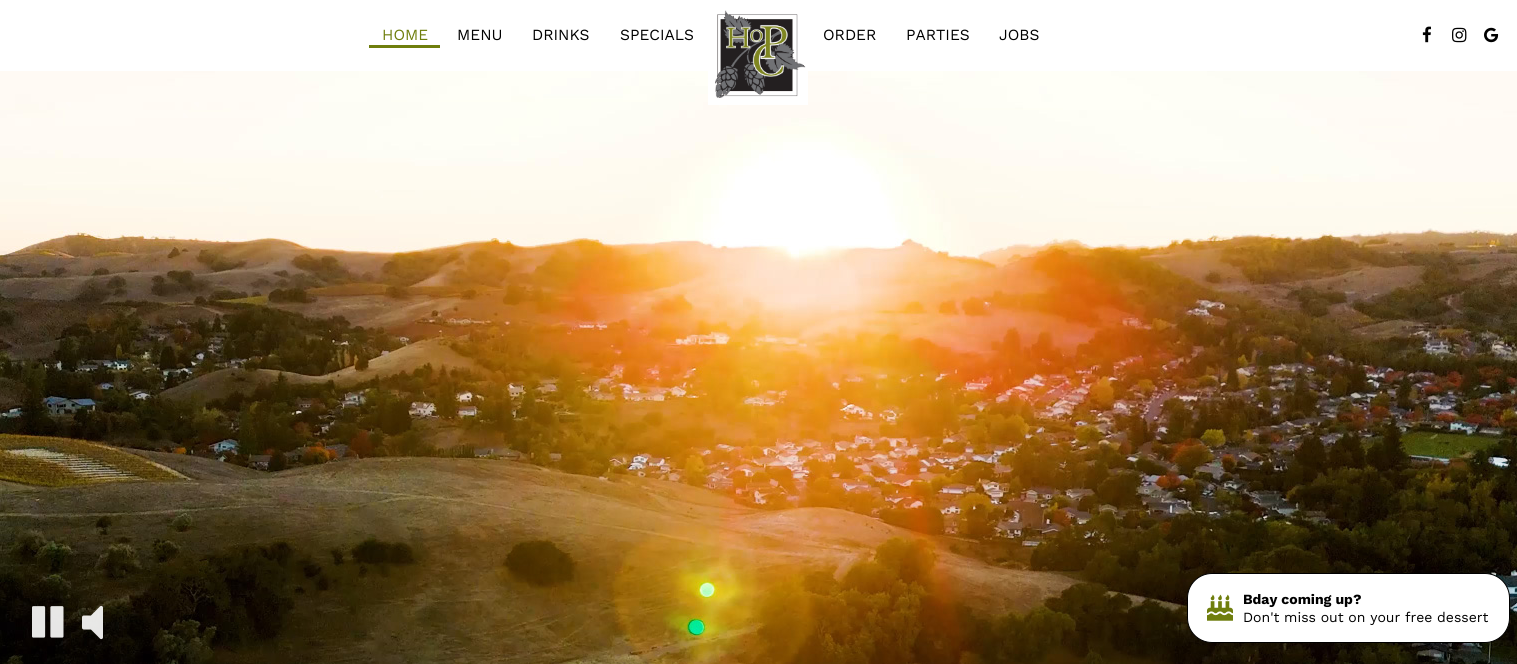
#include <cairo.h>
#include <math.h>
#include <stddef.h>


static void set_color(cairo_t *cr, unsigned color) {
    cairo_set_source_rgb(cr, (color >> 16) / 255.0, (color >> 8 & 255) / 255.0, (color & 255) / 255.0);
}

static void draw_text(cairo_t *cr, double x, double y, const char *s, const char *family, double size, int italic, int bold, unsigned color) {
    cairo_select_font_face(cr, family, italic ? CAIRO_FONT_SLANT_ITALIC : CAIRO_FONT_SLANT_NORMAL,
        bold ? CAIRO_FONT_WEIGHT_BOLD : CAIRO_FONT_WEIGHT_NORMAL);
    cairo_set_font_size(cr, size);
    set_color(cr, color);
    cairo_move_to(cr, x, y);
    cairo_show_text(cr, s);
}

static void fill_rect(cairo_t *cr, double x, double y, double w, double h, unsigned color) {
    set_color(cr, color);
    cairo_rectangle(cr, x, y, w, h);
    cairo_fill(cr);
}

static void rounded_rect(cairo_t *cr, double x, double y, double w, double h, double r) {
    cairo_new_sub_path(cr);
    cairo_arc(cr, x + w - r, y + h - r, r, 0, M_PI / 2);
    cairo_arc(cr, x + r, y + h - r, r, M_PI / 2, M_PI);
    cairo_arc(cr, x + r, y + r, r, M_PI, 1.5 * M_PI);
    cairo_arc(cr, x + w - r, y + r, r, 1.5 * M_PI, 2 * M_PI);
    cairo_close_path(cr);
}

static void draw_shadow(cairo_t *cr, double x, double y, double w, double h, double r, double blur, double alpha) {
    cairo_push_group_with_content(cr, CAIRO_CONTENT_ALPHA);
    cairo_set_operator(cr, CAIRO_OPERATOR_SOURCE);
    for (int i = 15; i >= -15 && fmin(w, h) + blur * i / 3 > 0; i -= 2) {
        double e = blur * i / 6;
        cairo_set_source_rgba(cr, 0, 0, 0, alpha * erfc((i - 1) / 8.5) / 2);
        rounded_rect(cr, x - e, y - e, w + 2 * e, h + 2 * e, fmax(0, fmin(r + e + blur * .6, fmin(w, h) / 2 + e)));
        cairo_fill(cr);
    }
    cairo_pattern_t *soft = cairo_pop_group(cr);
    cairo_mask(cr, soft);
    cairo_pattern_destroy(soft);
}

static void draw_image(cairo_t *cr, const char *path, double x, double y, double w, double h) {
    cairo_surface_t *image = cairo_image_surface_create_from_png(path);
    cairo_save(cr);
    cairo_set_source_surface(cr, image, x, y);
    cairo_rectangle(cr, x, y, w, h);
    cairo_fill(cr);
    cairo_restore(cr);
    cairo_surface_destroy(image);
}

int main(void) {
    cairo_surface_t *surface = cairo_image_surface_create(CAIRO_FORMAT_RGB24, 1517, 664);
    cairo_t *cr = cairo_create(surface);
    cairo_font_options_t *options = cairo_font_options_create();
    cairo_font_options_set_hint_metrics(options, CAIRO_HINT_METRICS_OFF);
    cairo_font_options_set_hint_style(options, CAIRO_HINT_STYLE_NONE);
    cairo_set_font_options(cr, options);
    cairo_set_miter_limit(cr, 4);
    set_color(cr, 0xFFFFFF);
    cairo_paint(cr);
    draw_text(cr, 382, 40, "HOME", "Work Sans", 15.5, 0, 0, 0x6F7E0D);
    fill_rect(cr, 369, 45, 71, 3, 0x6F7E0D);
    draw_text(cr, 457, 40, "MENU", "Work Sans", 15.5, 0, 0, 0x000000);
    draw_text(cr, 532, 40, "DRINKS", "Work Sans", 15.5, 0, 0, 0x000000);
    draw_text(cr, 620, 40, "SPECIALS", "Work Sans", 15.5, 0, 0, 0x000000);
    draw_image(cr, "assets/img5.png", 0, 71, 1517, 593);
    draw_image(cr, "assets/img1.png", 708, 10, 100, 95);
    draw_text(cr, 823, 40, "ORDER", "Work Sans", 15.5, 0, 0, 0x000000);
    draw_text(cr, 906, 40, "PARTIES", "Work Sans", 15.5, 0, 0, 0x000000);
    draw_text(cr, 999, 40, "JOBS", "Work Sans", 15.5, 0, 0, 0x000000);
    draw_image(cr, "assets/img2.png", 1422, 26, 9, 17);
    draw_image(cr, "assets/img3.png", 1452, 27, 15, 16);
    draw_image(cr, "assets/img4.png", 1484, 27, 15, 16);
    draw_image(cr, "assets/img6.png", 32, 606, 32, 32);
    draw_image(cr, "assets/img7.png", 82, 605, 21, 35);
    set_color(cr, 0x000000);
    draw_shadow(cr, 1187, 577, 323, 70, 25, 4, 0.15);
    set_color(cr, 0xFFFFFF);
    rounded_rect(cr, 1187.5, 573.5, 322, 69, 24.5);
    cairo_fill_preserve(cr);
    set_color(cr, 0x000000);
    cairo_set_line_width(cr, 1);
    cairo_stroke(cr);
    draw_image(cr, "assets/img8.png", 1207, 594, 26, 27);
    draw_text(cr, 1243, 604, "Bday coming up?", "Work Sans", 14, 0, 1, 0x000000);
    draw_text(cr, 1243, 622, "Don't miss out on your free dessert", "Work Sans", 14, 0, 0, 0x000000);
    cairo_surface_write_to_png(surface, "output.png");
    cairo_font_options_destroy(options);
    cairo_destroy(cr);
    cairo_surface_destroy(surface);
    return 0;
}
